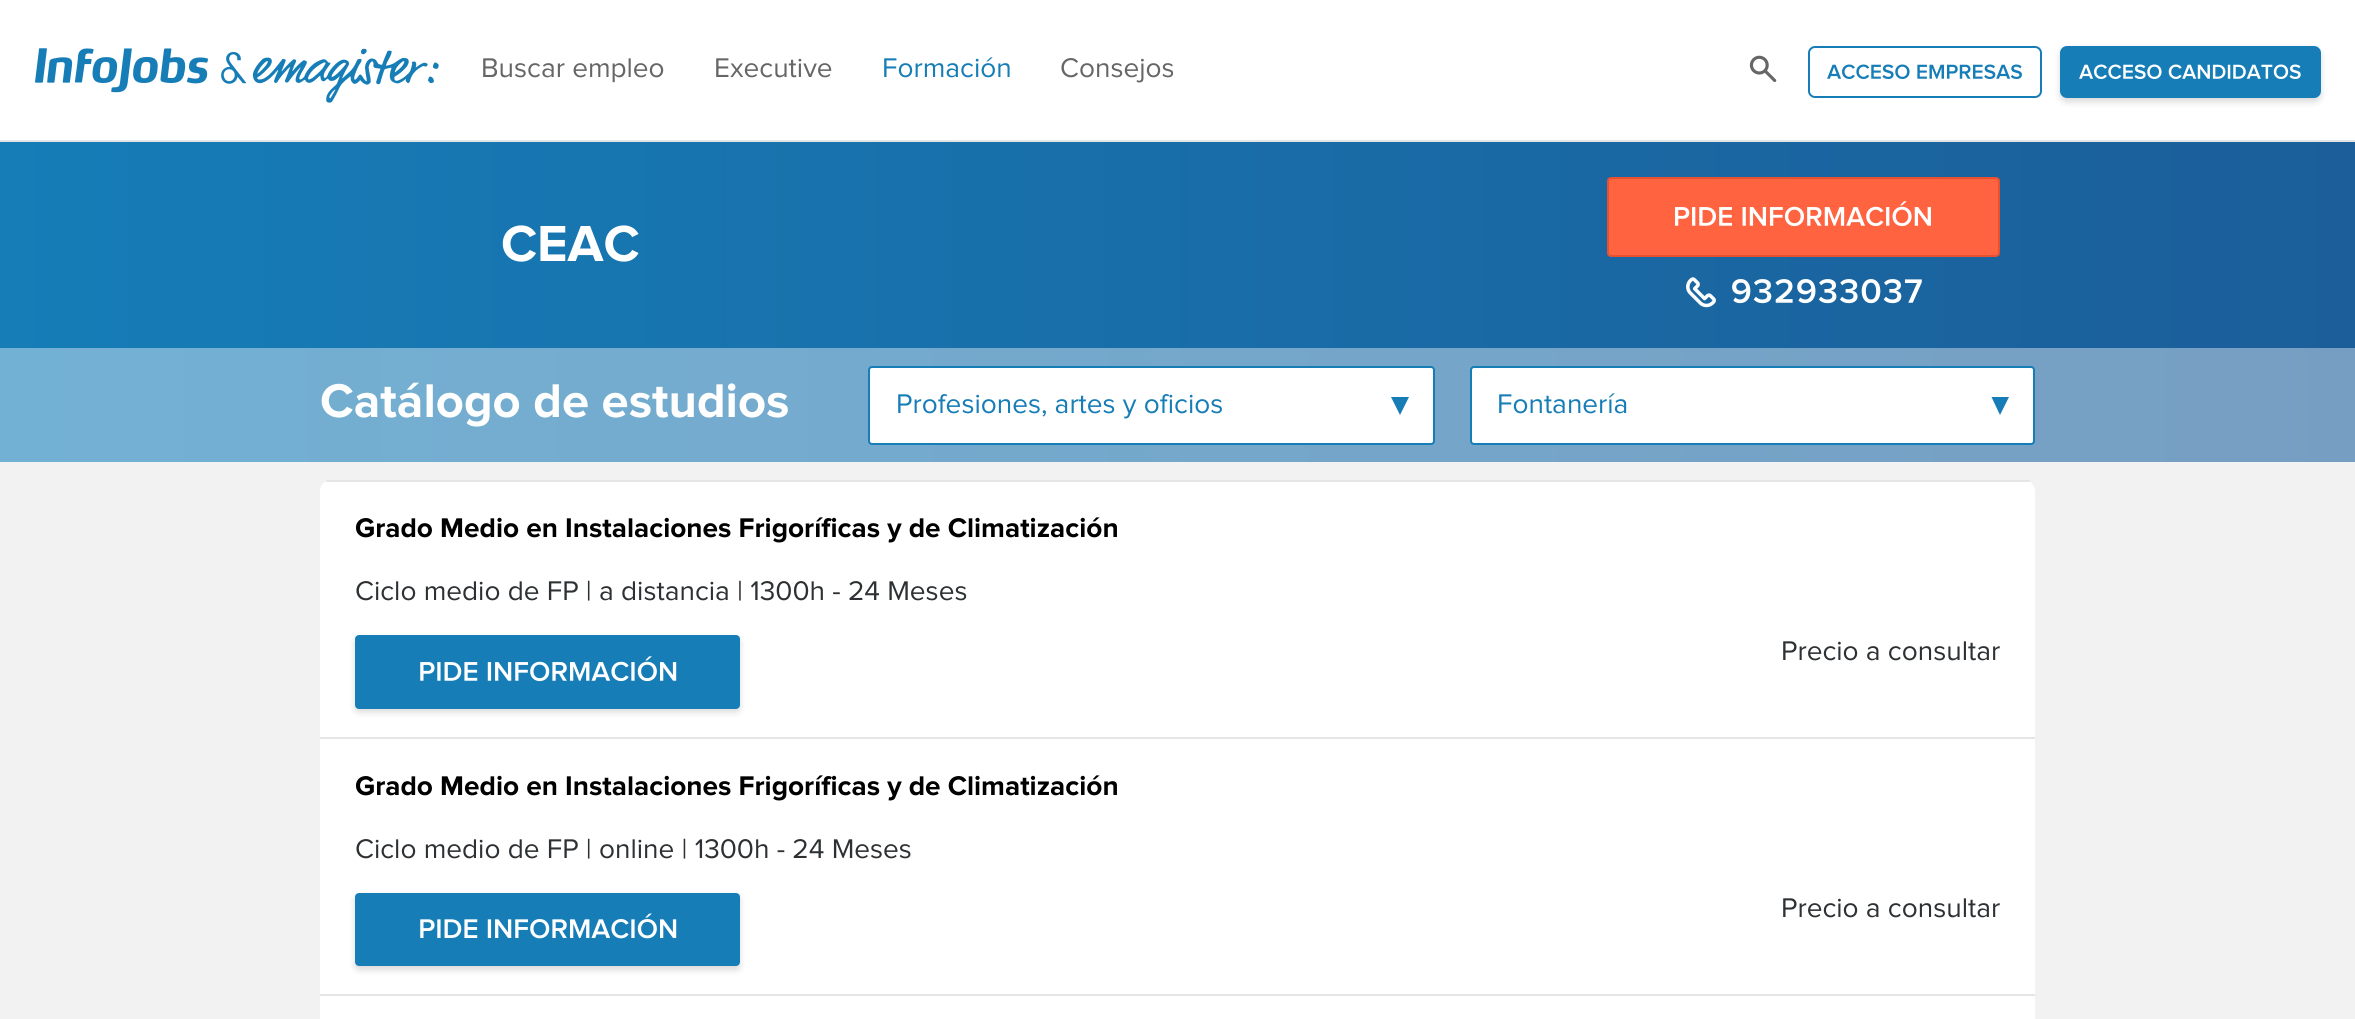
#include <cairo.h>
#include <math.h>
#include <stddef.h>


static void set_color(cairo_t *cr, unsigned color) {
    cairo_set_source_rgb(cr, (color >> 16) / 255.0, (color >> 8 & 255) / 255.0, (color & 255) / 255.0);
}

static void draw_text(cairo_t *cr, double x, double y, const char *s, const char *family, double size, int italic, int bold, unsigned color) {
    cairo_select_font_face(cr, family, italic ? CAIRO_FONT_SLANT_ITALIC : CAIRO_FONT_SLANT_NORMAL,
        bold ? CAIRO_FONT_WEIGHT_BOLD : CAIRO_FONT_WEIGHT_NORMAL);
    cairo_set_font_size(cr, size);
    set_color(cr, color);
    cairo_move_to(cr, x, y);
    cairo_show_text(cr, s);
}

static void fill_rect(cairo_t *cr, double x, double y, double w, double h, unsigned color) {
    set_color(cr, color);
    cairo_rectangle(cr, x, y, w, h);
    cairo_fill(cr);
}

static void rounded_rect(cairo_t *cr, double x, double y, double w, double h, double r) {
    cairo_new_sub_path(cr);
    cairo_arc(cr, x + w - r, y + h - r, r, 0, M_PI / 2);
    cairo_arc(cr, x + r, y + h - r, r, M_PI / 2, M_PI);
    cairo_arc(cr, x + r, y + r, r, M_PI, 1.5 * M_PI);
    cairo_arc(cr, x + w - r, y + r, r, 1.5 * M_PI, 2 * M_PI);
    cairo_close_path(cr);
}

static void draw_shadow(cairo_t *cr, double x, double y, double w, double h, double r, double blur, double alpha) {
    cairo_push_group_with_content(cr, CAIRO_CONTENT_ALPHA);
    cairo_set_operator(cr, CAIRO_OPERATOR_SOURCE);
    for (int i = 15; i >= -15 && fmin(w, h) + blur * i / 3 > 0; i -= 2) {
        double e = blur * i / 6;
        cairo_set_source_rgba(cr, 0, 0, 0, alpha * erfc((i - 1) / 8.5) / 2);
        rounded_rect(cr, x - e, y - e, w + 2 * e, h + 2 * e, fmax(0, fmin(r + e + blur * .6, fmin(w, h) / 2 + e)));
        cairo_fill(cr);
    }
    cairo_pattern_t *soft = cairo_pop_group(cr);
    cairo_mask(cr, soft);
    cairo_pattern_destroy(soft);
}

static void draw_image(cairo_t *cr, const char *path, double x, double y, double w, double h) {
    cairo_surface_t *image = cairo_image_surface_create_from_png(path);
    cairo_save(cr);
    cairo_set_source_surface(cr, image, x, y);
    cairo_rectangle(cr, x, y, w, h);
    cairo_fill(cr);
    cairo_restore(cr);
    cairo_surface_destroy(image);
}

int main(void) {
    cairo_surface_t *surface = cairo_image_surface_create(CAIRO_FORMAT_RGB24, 2355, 1019);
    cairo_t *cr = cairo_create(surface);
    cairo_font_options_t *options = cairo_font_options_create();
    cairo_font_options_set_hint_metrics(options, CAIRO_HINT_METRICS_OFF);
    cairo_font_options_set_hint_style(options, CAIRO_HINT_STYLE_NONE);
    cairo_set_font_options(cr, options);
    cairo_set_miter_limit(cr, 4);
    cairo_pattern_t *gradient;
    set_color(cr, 0xF2F2F2);
    cairo_paint(cr);
    fill_rect(cr, 0, 0, 2355, 140, 0xFFFFFF);
    fill_rect(cr, 0, 140, 2355, 2, 0xE2E5E6);
    draw_image(cr, "assets/img1.png", 35, 48, 404, 55);
    draw_text(cr, 481, 77, "Buscar empleo", "Proxima Nova", 28, 0, 0, 0x666666);
    draw_text(cr, 714, 77, "Executive", "Proxima Nova", 28, 0, 0, 0x666666);
    draw_text(cr, 882, 77, "Formación", "Proxima Nova", 28, 0, 0, 0x167DB7);
    draw_text(cr, 1060, 77, "Consejos", "Proxima Nova", 28, 0, 0, 0x666666);
    draw_image(cr, "assets/img2.png", 1749, 55, 28, 28);
    rounded_rect(cr, 1809, 47, 232, 50, 6);
    set_color(cr, 0x167DB7);
    cairo_stroke(cr);
    draw_image(cr, "assets/img3.png", 1827, 64, 195, 15);
    set_color(cr, 0x000000);
    draw_shadow(cr, 2060, 49, 261, 53, 7, 3.5, 0.15);
    set_color(cr, 0x167DB7);
    rounded_rect(cr, 2061, 47, 259, 50, 6);
    cairo_fill_preserve(cr);
    cairo_stroke(cr);
    draw_image(cr, "assets/img4.png", 2079, 64, 222, 15);
    gradient = cairo_pattern_create_linear(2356, 302, 0, 302);
    cairo_pattern_add_color_stop_rgba(gradient, 0, 0.106, 0.369, 0.604, 1);
    cairo_pattern_add_color_stop_rgba(gradient, 1, 0.086, 0.49, 0.718, 1);
    cairo_set_source(cr, gradient);
    cairo_pattern_destroy(gradient);
    cairo_rectangle(cr, 0, 142, 2355, 206);
    cairo_fill(cr);
    gradient = cairo_pattern_create_linear(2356, 302, 0, 302);
    cairo_pattern_add_color_stop_rgba(gradient, 0, 0.463, 0.62, 0.761, 1);
    cairo_pattern_add_color_stop_rgba(gradient, 1, 0.451, 0.694, 0.831, 1);
    cairo_set_source(cr, gradient);
    cairo_pattern_destroy(gradient);
    cairo_rectangle(cr, 0, 348, 2355, 114);
    cairo_fill(cr);
    draw_text(cr, 501, 261, "CEAC", "Proxima Nova", 52.5, 0, 1, 0xFFFFFF);
    set_color(cr, 0xFF6340);
    rounded_rect(cr, 1608, 178, 391, 78, 3);
    cairo_fill_preserve(cr);
    set_color(cr, 0xE7512F);
    cairo_stroke(cr);
    draw_image(cr, "assets/img5.png", 1675, 201, 256, 26);
    draw_image(cr, "assets/img6.png", 1686, 277, 30, 31);
    draw_image(cr, "assets/img7.png", 1732, 279, 190, 25);
    draw_text(cr, 320, 417, "Catálogo de estudios", "Proxima Nova", 49, 0, 1, 0xFFFFFF);
    rounded_rect(cr, 869, 367, 565, 77, 3);
    cairo_fill_preserve(cr);
    set_color(cr, 0x167DB7);
    cairo_stroke(cr);
    draw_text(cr, 896, 413, "Profesiones, artes y oficios", "Proxima Nova", 28, 0, 0, 0x167DB7);
    cairo_new_path(cr);
    cairo_move_to(cr, 1391, 397);
    cairo_line_to(cr, 1409, 397);
    cairo_line_to(cr, 1400, 415);
    cairo_close_path(cr);
    cairo_fill(cr);
    set_color(cr, 0xFFFFFF);
    rounded_rect(cr, 1471, 367, 563, 77, 3);
    cairo_fill_preserve(cr);
    set_color(cr, 0x167DB7);
    cairo_stroke(cr);
    draw_text(cr, 1497, 413, "Fontanería", "Proxima Nova", 28, 0, 0, 0x167DB7);
    cairo_new_path(cr);
    cairo_move_to(cr, 1991.5, 397);
    cairo_line_to(cr, 2009, 397);
    cairo_line_to(cr, 2000, 415);
    cairo_close_path(cr);
    cairo_fill(cr);
    set_color(cr, 0xFFFFFF);
    rounded_rect(cr, 320, 480, 1715, 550, 11);
    cairo_fill(cr);
    fill_rect(cr, 326, 480, 1704, 2, 0xE5E5E5);
    fill_rect(cr, 320, 737, 1715, 2, 0xE5E5E5);
    draw_text(cr, 355, 537, "Grado Medio en Instalaciones Frigoríficas y de Climatización", "Proxima Nova", 28, 0, 1, 0x000000);
    draw_text(cr, 355, 600, "Ciclo medio de FP | a distancia | 1300h - 24 Meses", "Proxima Nova", 28, 0, 0, 0x2D3133);
    set_color(cr, 0x000000);
    draw_shadow(cr, 355, 639, 385, 73, 4, 3.5, 0.15);
    set_color(cr, 0x167DB7);
    rounded_rect(cr, 356, 636, 383, 72, 3);
    cairo_fill_preserve(cr);
    cairo_stroke(cr);
    draw_image(cr, "assets/img8.png", 420, 656, 257, 26);
    draw_text(cr, 1781, 660, "Precio a consultar", "Proxima Nova", 28, 0, 0, 0x2D3133);
    fill_rect(cr, 320, 994, 1715, 2, 0xE5E5E5);
    draw_text(cr, 355, 795, "Grado Medio en Instalaciones Frigoríficas y de Climatización", "Proxima Nova", 28, 0, 1, 0x000000);
    draw_text(cr, 355, 858, "Ciclo medio de FP | online | 1300h - 24 Meses", "Proxima Nova", 28, 0, 0, 0x2D3133);
    set_color(cr, 0x000000);
    draw_shadow(cr, 355, 896, 385, 74, 4, 3.5, 0.15);
    set_color(cr, 0x167DB7);
    rounded_rect(cr, 356, 894, 383, 71, 3);
    cairo_fill_preserve(cr);
    cairo_stroke(cr);
    draw_image(cr, "assets/img9.png", 420, 913, 257, 26);
    draw_text(cr, 1781, 917, "Precio a consultar", "Proxima Nova", 28, 0, 0, 0x2D3133);
    cairo_surface_write_to_png(surface, "output.png");
    cairo_font_options_destroy(options);
    cairo_destroy(cr);
    cairo_surface_destroy(surface);
    return 0;
}
